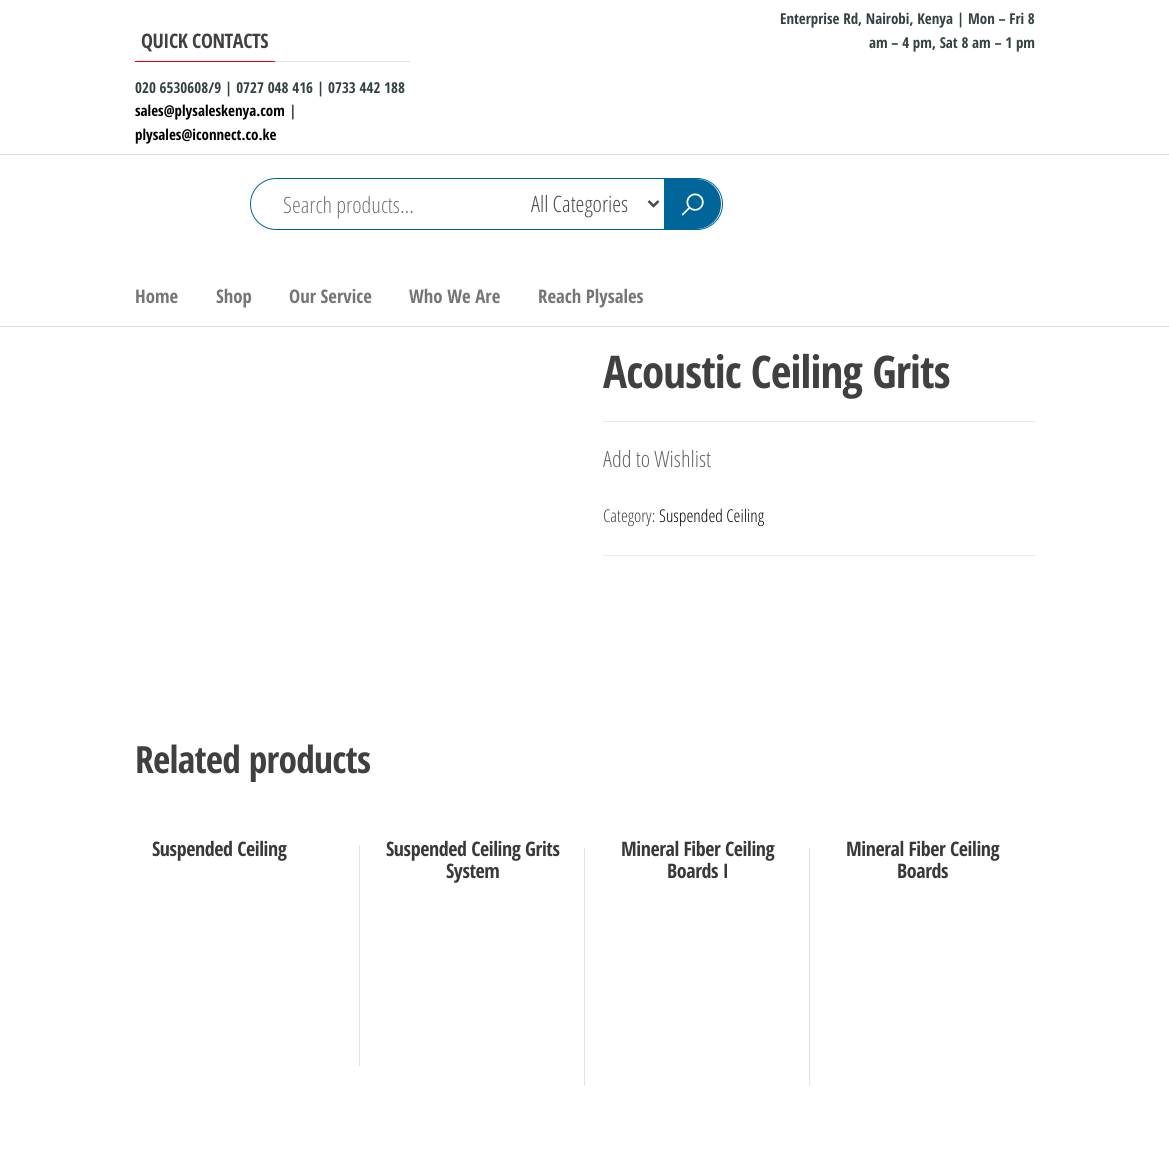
#include <cairo.h>
#include <math.h>
#include <stddef.h>


static void set_color(cairo_t *cr, unsigned color) {
    cairo_set_source_rgb(cr, (color >> 16) / 255.0, (color >> 8 & 255) / 255.0, (color & 255) / 255.0);
}

static void draw_text(cairo_t *cr, double x, double y, const char *s, const char *family, double size, int italic, int bold, unsigned color) {
    cairo_select_font_face(cr, family, italic ? CAIRO_FONT_SLANT_ITALIC : CAIRO_FONT_SLANT_NORMAL,
        bold ? CAIRO_FONT_WEIGHT_BOLD : CAIRO_FONT_WEIGHT_NORMAL);
    cairo_set_font_size(cr, size);
    set_color(cr, color);
    cairo_move_to(cr, x, y);
    cairo_show_text(cr, s);
}

static void draw_spaced(cairo_t *cr, double x, double y, const char *s, double letter, double word) {
    cairo_move_to(cr, x, y);
    while (*s) {
        char ch[5] = {0};
        int n = 0;
        do ch[n++] = *s++; while ((*s & 0xC0) == 0x80);
        cairo_show_text(cr, ch);
        cairo_rel_move_to(cr, letter + word * (*ch == ' '), 0);
    }
}

static void fill_rect(cairo_t *cr, double x, double y, double w, double h, unsigned color) {
    set_color(cr, color);
    cairo_rectangle(cr, x, y, w, h);
    cairo_fill(cr);
}

static void rounded_rect(cairo_t *cr, double x, double y, double w, double h, double r) {
    cairo_new_sub_path(cr);
    cairo_arc(cr, x + w - r, y + h - r, r, 0, M_PI / 2);
    cairo_arc(cr, x + r, y + h - r, r, M_PI / 2, M_PI);
    cairo_arc(cr, x + r, y + r, r, M_PI, 1.5 * M_PI);
    cairo_arc(cr, x + w - r, y + r, r, 1.5 * M_PI, 2 * M_PI);
    cairo_close_path(cr);
}

static void draw_image(cairo_t *cr, const char *path, double x, double y, double w, double h) {
    cairo_surface_t *image = cairo_image_surface_create_from_png(path);
    cairo_save(cr);
    cairo_set_source_surface(cr, image, x, y);
    cairo_rectangle(cr, x, y, w, h);
    cairo_fill(cr);
    cairo_restore(cr);
    cairo_surface_destroy(image);
}

int main(void) {
    cairo_surface_t *surface = cairo_image_surface_create(CAIRO_FORMAT_RGB24, 1169, 1169);
    cairo_t *cr = cairo_create(surface);
    cairo_font_options_t *options = cairo_font_options_create();
    cairo_font_options_set_hint_metrics(options, CAIRO_HINT_METRICS_OFF);
    cairo_font_options_set_hint_style(options, CAIRO_HINT_STYLE_NONE);
    cairo_set_font_options(cr, options);
    cairo_set_miter_limit(cr, 4);
    set_color(cr, 0xFFFFFF);
    cairo_paint(cr);
    fill_rect(cr, 0, 154, 1169, 1, 0xDDDDDD);
    fill_rect(cr, 275, 61, 135, 1, 0xE2E2E2);
    cairo_select_font_face(cr, "Open Sans Condensed", CAIRO_FONT_SLANT_NORMAL, CAIRO_FONT_WEIGHT_BOLD);
    cairo_set_font_size(cr, 20);
    set_color(cr, 0x404040);
    draw_spaced(cr, 141, 48, "QUICK CONTACTS", -0.4, 0);
    fill_rect(cr, 135, 61, 140, 1, 0xFF0000);
    draw_text(cr, 135, 93, "020 6530608/9 | 0727 048 416 | 0733 442 188", "Open Sans Condensed", 15, 0, 1, 0x334142);
    draw_text(cr, 135, 116, "sales@plysaleskenya.com", "Open Sans Condensed", 15, 0, 1, 0x000000);
    draw_text(cr, 289, 116, "|", "Open Sans Condensed", 15, 0, 1, 0x334142);
    draw_text(cr, 135, 140, "plysales@iconnect.co.ke", "Open Sans Condensed", 15, 0, 1, 0x000000);
    draw_text(cr, 780, 24, "Enterprise Rd, Nairobi, Kenya | Mon – Fri 8", "Open Sans Condensed", 15, 0, 1, 0x334142);
    draw_text(cr, 869, 48, "am – 4 pm, Sat 8 am – 1 pm", "Open Sans Condensed", 15, 0, 1, 0x334142);
    rounded_rect(cr, 250.5, 178.5, 472, 51, 25.5);
    set_color(cr, 0x006699);
    cairo_set_line_width(cr, 1);
    cairo_stroke(cr);
    draw_text(cr, 283, 213, "Search products...", "Open Sans Condensed Light", 22.5, 0, 0, 0x757575);
    cairo_new_path(cr);
    cairo_move_to(cr, 648.5, 201);
    cairo_line_to(cr, 653.5, 206);
    cairo_line_to(cr, 658.5, 201);
    set_color(cr, 0x484848);
    cairo_set_line_width(cr, 2.5);
    cairo_stroke(cr);
    draw_text(cr, 531, 212, "All Categories", "Open Sans Condensed Light", 22.5, 0, 0, 0x484848);
    set_color(cr, 0x006699);
    cairo_new_path(cr);
    cairo_move_to(cr, 664, 179);
    cairo_line_to(cr, 696, 179);
    cairo_curve_to(cr, 710, 179, 721, 190, 721, 204);
    cairo_curve_to(cr, 721, 218, 710, 229, 696, 229);
    cairo_line_to(cr, 664, 229);
    cairo_close_path(cr);
    cairo_fill(cr);
    draw_image(cr, "assets/img1.png", 681, 193, 23, 23);
    fill_rect(cr, 0, 326, 1169, 1, 0xDDDDDD);
    draw_text(cr, 135, 303, "Home", "Open Sans Condensed", 18.75, 0, 1, 0x757575);
    draw_text(cr, 216, 303, "Shop", "Open Sans Condensed", 18.75, 0, 1, 0x757575);
    draw_text(cr, 289, 303, "Our Service", "Open Sans Condensed", 18.75, 0, 1, 0x757575);
    draw_text(cr, 409, 303, "Who We Are", "Open Sans Condensed", 18.75, 0, 1, 0x757575);
    draw_text(cr, 538, 303, "Reach Plysales", "Open Sans Condensed", 18.75, 0, 1, 0x757575);
    fill_rect(cr, 603, 421, 432, 1, 0xEAEAEA);
    cairo_set_font_size(cr, 45);
    set_color(cr, 0x404040);
    draw_spaced(cr, 603, 388, "Acoustic Ceiling Grits", -0.9, 0);
    draw_text(cr, 603, 467, "Add to Wishlist", "Open Sans Condensed Light", 22.5, 0, 0, 0x666666);
    fill_rect(cr, 603, 555, 432, 1, 0xEAEAEA);
    draw_text(cr, 603, 522, "Category:", "Open Sans Condensed Light", 17.5, 0, 0, 0x404040);
    draw_text(cr, 659, 522, "Suspended Ceiling", "Open Sans Condensed Light", 17.5, 0, 0, 0x000000);
    cairo_select_font_face(cr, "Open Sans Condensed", CAIRO_FONT_SLANT_NORMAL, CAIRO_FONT_WEIGHT_BOLD);
    cairo_set_font_size(cr, 37.5);
    set_color(cr, 0x404040);
    draw_spaced(cr, 135, 773, "Related products", -0.75, 0);
    cairo_set_font_size(cr, 20);
    set_color(cr, 0x39393A);
    draw_spaced(cr, 152, 856, "Suspended Ceiling", -0.4, 0);
    fill_rect(cr, 359, 845, 1, 221, 0xE2E2E2);
    set_color(cr, 0x39393A);
    draw_spaced(cr, 386, 856, "Suspended Ceiling Grits", -0.4, 0);
    draw_spaced(cr, 446, 878, "System", -0.4, 0);
    fill_rect(cr, 584, 848, 1, 238, 0xE2E2E2);
    set_color(cr, 0x39393A);
    draw_spaced(cr, 621, 856, "Mineral Fiber Ceiling", -0.4, 0);
    draw_spaced(cr, 667, 878, "Boards I", -0.4, 0);
    fill_rect(cr, 809, 848, 1, 238, 0xE2E2E2);
    set_color(cr, 0x39393A);
    draw_spaced(cr, 846, 856, "Mineral Fiber Ceiling", -0.4, 0);
    draw_spaced(cr, 897, 878, "Boards", -0.4, 0);
    cairo_surface_write_to_png(surface, "output.png");
    cairo_font_options_destroy(options);
    cairo_destroy(cr);
    cairo_surface_destroy(surface);
    return 0;
}
